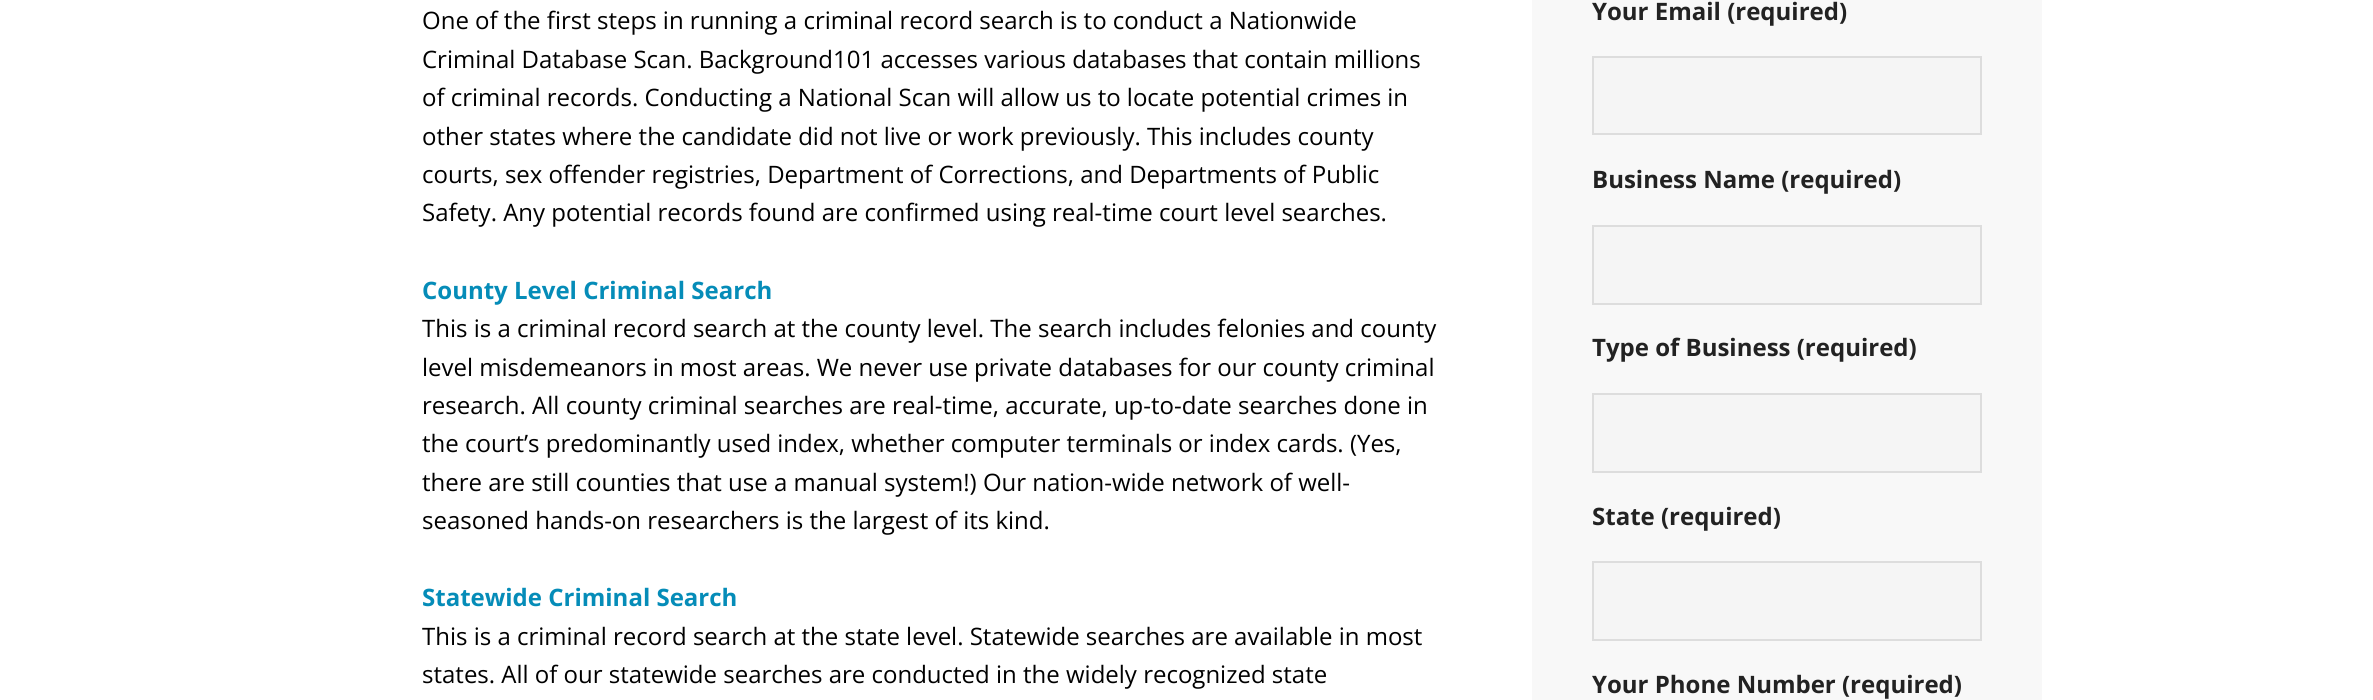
#include <cairo.h>
#include <math.h>
#include <stddef.h>


static void set_color(cairo_t *cr, unsigned color) {
    cairo_set_source_rgb(cr, (color >> 16) / 255.0, (color >> 8 & 255) / 255.0, (color & 255) / 255.0);
}

static void draw_text(cairo_t *cr, double x, double y, const char *s, const char *family, double size, int italic, int bold, unsigned color) {
    cairo_select_font_face(cr, family, italic ? CAIRO_FONT_SLANT_ITALIC : CAIRO_FONT_SLANT_NORMAL,
        bold ? CAIRO_FONT_WEIGHT_BOLD : CAIRO_FONT_WEIGHT_NORMAL);
    cairo_set_font_size(cr, size);
    set_color(cr, color);
    cairo_move_to(cr, x, y);
    cairo_show_text(cr, s);
}

static void fill_rect(cairo_t *cr, double x, double y, double w, double h, unsigned color) {
    set_color(cr, color);
    cairo_rectangle(cr, x, y, w, h);
    cairo_fill(cr);
}

int main(void) {
    cairo_surface_t *surface = cairo_image_surface_create(CAIRO_FORMAT_RGB24, 2373, 700);
    cairo_t *cr = cairo_create(surface);
    cairo_font_options_t *options = cairo_font_options_create();
    cairo_font_options_set_hint_metrics(options, CAIRO_HINT_METRICS_OFF);
    cairo_font_options_set_hint_style(options, CAIRO_HINT_STYLE_NONE);
    cairo_set_font_options(cr, options);
    cairo_set_miter_limit(cr, 4);
    set_color(cr, 0xFFFFFF);
    cairo_paint(cr);
    draw_text(cr, 422, 29, "One of the first steps in running a criminal record search is to conduct a Nationwide", "Open Sans", 24, 0, 0, 0x000000);
    draw_text(cr, 422, 68, "Criminal Database Scan. Background101 accesses various databases that contain millions", "Open Sans", 24, 0, 0, 0x000000);
    draw_text(cr, 422, 106, "of criminal records. Conducting a National Scan will allow us to locate potential crimes in", "Open Sans", 24, 0, 0, 0x000000);
    draw_text(cr, 422, 145, "other states where the candidate did not live or work previously. This includes county", "Open Sans", 24, 0, 0, 0x000000);
    draw_text(cr, 422, 183, "courts, sex offender registries, Department of Corrections, and Departments of Public", "Open Sans", 24, 0, 0, 0x000000);
    draw_text(cr, 422, 221, "Safety. Any potential records found are confirmed using real-time court level searches.", "Open Sans", 24, 0, 0, 0x000000);
    draw_text(cr, 422, 299, "County Level Criminal Search", "Open Sans", 24, 0, 1, 0x058CB8);
    draw_text(cr, 422, 337, "This is a criminal record search at the county level. The search includes felonies and county", "Open Sans", 24, 0, 0, 0x000000);
    draw_text(cr, 422, 376, "level misdemeanors in most areas. We never use private databases for our county criminal", "Open Sans", 24, 0, 0, 0x000000);
    draw_text(cr, 422, 414, "research. All county criminal searches are real-time, accurate, up-to-date searches done in", "Open Sans", 24, 0, 0, 0x000000);
    draw_text(cr, 422, 452, "the court’s predominantly used index, whether computer terminals or index cards. (Yes,", "Open Sans", 24, 0, 0, 0x000000);
    draw_text(cr, 422, 491, "there are still counties that use a manual system!) Our nation-wide network of well-", "Open Sans", 24, 0, 0, 0x000000);
    draw_text(cr, 422, 529, "seasoned hands-on researchers is the largest of its kind.", "Open Sans", 24, 0, 0, 0x000000);
    draw_text(cr, 422, 606, "Statewide Criminal Search", "Open Sans", 24, 0, 1, 0x058CB8);
    draw_text(cr, 422, 645, "This is a criminal record search at the state level. Statewide searches are available in most", "Open Sans", 24, 0, 0, 0x000000);
    draw_text(cr, 422, 683, "states. All of our statewide searches are conducted in the widely recognized state", "Open Sans", 24, 0, 0, 0x000000);
    fill_rect(cr, 1532, 0, 510, 700, 0xF8F8F8);
    draw_text(cr, 1592, 20, "Your Email (required)", "Open Sans", 24, 0, 1, 0x222222);
    set_color(cr, 0xF5F5F5);
    cairo_rectangle(cr, 1593, 57, 388, 77);
    cairo_fill_preserve(cr);
    set_color(cr, 0xDDDDDD);
    cairo_stroke(cr);
    draw_text(cr, 1592, 188, "Business Name (required)", "Open Sans", 24, 0, 1, 0x222222);
    set_color(cr, 0xF5F5F5);
    cairo_rectangle(cr, 1593, 226, 388, 78);
    cairo_fill_preserve(cr);
    set_color(cr, 0xDDDDDD);
    cairo_stroke(cr);
    draw_text(cr, 1592, 356, "Type of Business (required)", "Open Sans", 24, 0, 1, 0x222222);
    set_color(cr, 0xF5F5F5);
    cairo_rectangle(cr, 1593, 394, 388, 78);
    cairo_fill_preserve(cr);
    set_color(cr, 0xDDDDDD);
    cairo_stroke(cr);
    draw_text(cr, 1592, 525, "State (required)", "Open Sans", 24, 0, 1, 0x222222);
    set_color(cr, 0xF5F5F5);
    cairo_rectangle(cr, 1593, 562, 388, 78);
    cairo_fill_preserve(cr);
    set_color(cr, 0xDDDDDD);
    cairo_stroke(cr);
    draw_text(cr, 1592, 693, "Your Phone Number (required)", "Open Sans", 24, 0, 1, 0x222222);
    cairo_surface_write_to_png(surface, "output.png");
    cairo_font_options_destroy(options);
    cairo_destroy(cr);
    cairo_surface_destroy(surface);
    return 0;
}
